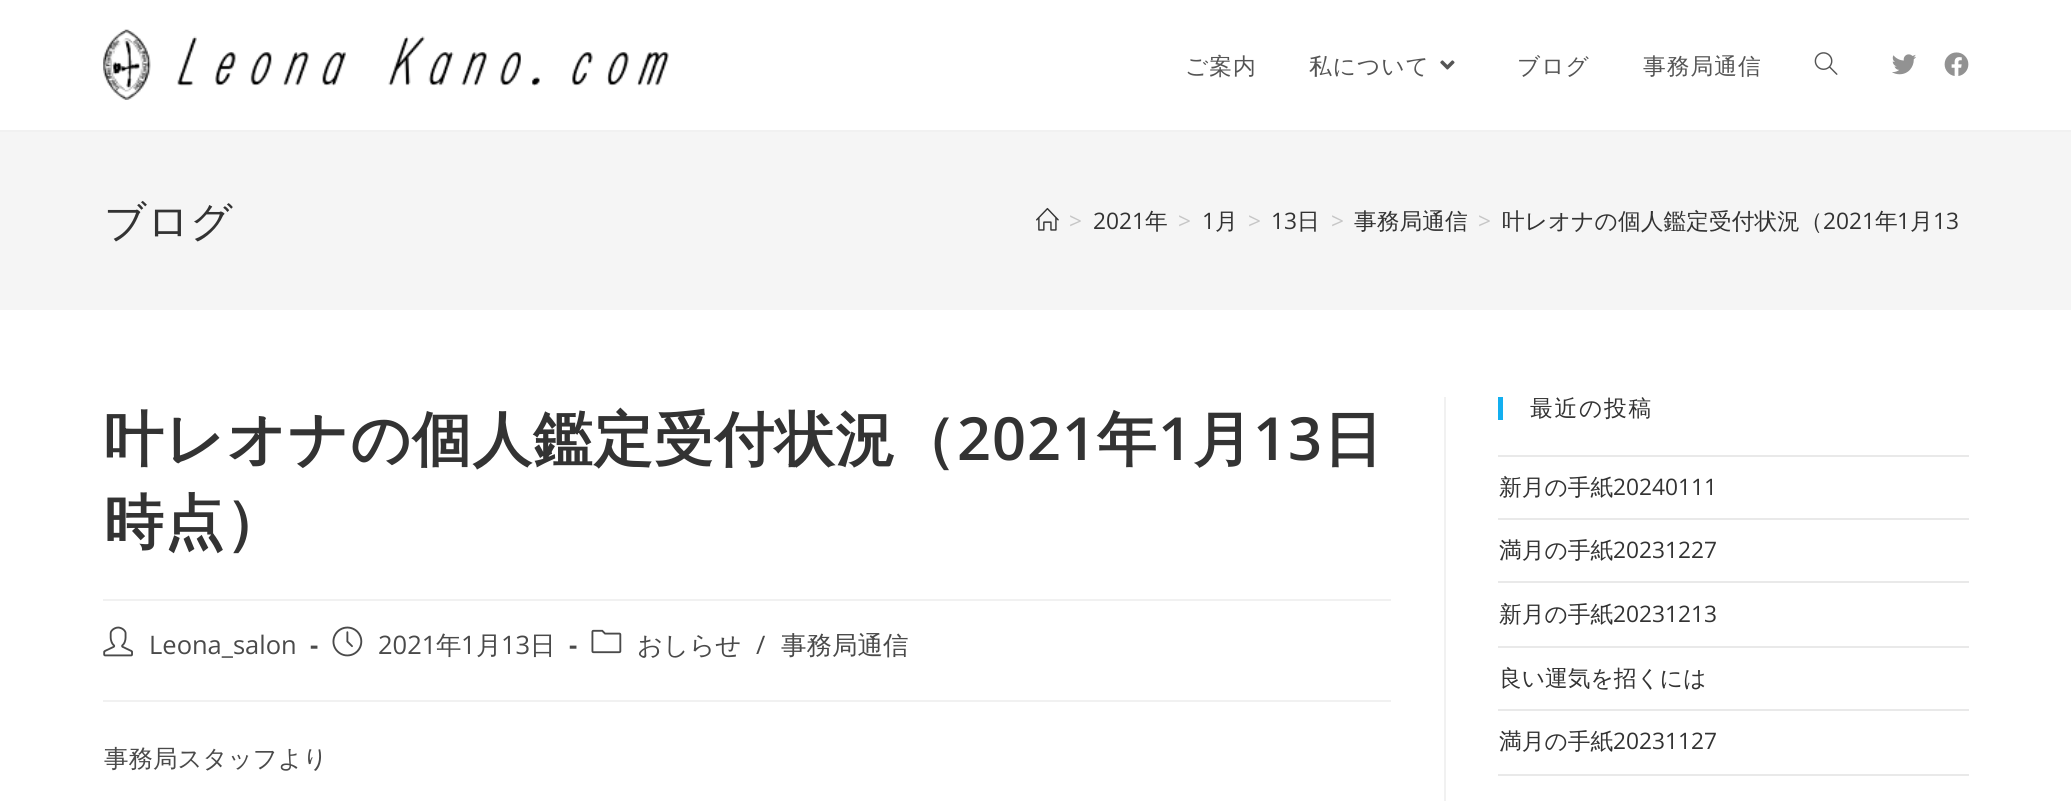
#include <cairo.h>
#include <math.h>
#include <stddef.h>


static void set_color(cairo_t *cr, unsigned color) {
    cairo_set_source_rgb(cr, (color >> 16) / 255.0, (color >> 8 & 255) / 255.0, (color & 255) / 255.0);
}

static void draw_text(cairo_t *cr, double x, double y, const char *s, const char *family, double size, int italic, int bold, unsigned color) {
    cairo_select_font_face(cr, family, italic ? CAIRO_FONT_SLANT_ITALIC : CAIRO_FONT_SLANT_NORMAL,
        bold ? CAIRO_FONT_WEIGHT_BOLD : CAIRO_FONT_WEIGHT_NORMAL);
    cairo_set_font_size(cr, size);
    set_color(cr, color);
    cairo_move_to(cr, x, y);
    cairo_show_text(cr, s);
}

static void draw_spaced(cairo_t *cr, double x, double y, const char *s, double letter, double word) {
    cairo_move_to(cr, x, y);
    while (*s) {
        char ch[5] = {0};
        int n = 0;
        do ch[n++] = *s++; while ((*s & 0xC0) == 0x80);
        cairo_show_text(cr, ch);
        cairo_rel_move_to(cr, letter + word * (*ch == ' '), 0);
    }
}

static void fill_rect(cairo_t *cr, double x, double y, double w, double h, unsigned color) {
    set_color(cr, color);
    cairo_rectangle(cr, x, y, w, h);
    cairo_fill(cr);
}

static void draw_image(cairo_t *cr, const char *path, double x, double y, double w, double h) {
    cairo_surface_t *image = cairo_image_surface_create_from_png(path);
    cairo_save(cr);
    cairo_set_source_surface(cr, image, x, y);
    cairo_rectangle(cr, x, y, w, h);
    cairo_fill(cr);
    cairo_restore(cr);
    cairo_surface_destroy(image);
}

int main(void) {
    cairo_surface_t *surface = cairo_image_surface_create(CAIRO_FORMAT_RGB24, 2071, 801);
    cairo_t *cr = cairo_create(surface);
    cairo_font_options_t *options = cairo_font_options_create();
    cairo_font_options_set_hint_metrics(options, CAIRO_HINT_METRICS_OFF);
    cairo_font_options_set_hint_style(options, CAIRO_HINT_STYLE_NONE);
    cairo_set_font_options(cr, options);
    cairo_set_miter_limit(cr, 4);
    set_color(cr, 0xFFFFFF);
    cairo_paint(cr);
    fill_rect(cr, 0, 130, 2071, 2, 0xF1F1F1);
    draw_image(cr, "assets/img1.png", 103, 29, 566, 71);
    cairo_select_font_face(cr, "WenQuanYi Zen Hei Medium", CAIRO_FONT_SLANT_NORMAL, CAIRO_FONT_WEIGHT_NORMAL);
    cairo_set_font_size(cr, 22.75);
    set_color(cr, 0x555555);
    draw_spaced(cr, 1185, 74, "ご案内", 1, 0);
    draw_spaced(cr, 1309, 74, "私について", 1, 0);
    draw_image(cr, "assets/img2.png", 1440, 60, 15, 10);
    draw_spaced(cr, 1517, 74, "ブログ", 1, 0);
    draw_spaced(cr, 1643, 74, "事務局通信", 1, 0);
    draw_image(cr, "assets/img3.png", 1814, 52, 24, 23);
    draw_image(cr, "assets/img4.png", 1892, 54, 24, 21);
    draw_image(cr, "assets/img5.png", 1944, 52, 25, 24);
    fill_rect(cr, 0, 132, 2071, 178, 0xF5F5F5);
    draw_text(cr, 104, 236, "ブログ", "WenQuanYi Zen Hei Medium", 42, 0, 0, 0x333333);
    draw_image(cr, "assets/img6.png", 1036, 207, 23, 24);
    draw_text(cr, 1069, 229, ">", "Open Sans", 22.75, 0, 0, 0xC6C6C6);
    draw_text(cr, 1093, 229, "2021", "Open Sans", 22.75, 0, 0, 0x333333);
    draw_text(cr, 1145, 229, "年", "WenQuanYi Zen Hei Medium", 22.75, 0, 0, 0x333333);
    draw_text(cr, 1178, 229, ">", "Open Sans", 22.75, 0, 0, 0xC6C6C6);
    draw_text(cr, 1202, 229, "1", "Open Sans", 22.75, 0, 0, 0x333333);
    draw_text(cr, 1215, 229, "月", "WenQuanYi Zen Hei Medium", 22.75, 0, 0, 0x333333);
    draw_text(cr, 1248, 229, ">", "Open Sans", 22.75, 0, 0, 0xC6C6C6);
    draw_text(cr, 1271, 229, "13", "Open Sans", 22.75, 0, 0, 0x333333);
    draw_text(cr, 1297, 229, "日", "WenQuanYi Zen Hei Medium", 22.75, 0, 0, 0x333333);
    draw_text(cr, 1331, 229, ">", "Open Sans", 22.75, 0, 0, 0xC6C6C6);
    draw_text(cr, 1354, 229, "事務局通信", "WenQuanYi Zen Hei Medium", 22.75, 0, 0, 0x333333);
    draw_text(cr, 1478, 229, ">", "Open Sans", 22.75, 0, 0, 0xC6C6C6);
    draw_text(cr, 1502, 229, "叶レオナの個人鑑定受付状況（", "WenQuanYi Zen Hei Medium", 22.75, 0, 0, 0x333333);
    draw_text(cr, 1823, 229, "2021", "Open Sans", 22.75, 0, 0, 0x333333);
    draw_text(cr, 1875, 229, "年", "WenQuanYi Zen Hei Medium", 22.75, 0, 0, 0x333333);
    draw_text(cr, 1897, 229, "1", "Open Sans", 22.75, 0, 0, 0x333333);
    draw_text(cr, 1910, 229, "月", "WenQuanYi Zen Hei Medium", 22.75, 0, 0, 0x333333);
    draw_text(cr, 1933, 229, "13", "Open Sans", 22.75, 0, 0, 0x333333);
    fill_rect(cr, 1444, 397, 2, 404, 0xF1F1F1);
    fill_rect(cr, 103, 599, 1288, 2, 0xF1F1F1);
    cairo_select_font_face(cr, "WenQuanYi Zen Hei", CAIRO_FONT_SLANT_NORMAL, CAIRO_FONT_WEIGHT_BOLD);
    cairo_set_font_size(cr, 59.5);
    set_color(cr, 0x333333);
    draw_spaced(cr, 104, 460, "叶レオナの個人鑑定受付状況（", 1, 0);
    cairo_select_font_face(cr, "Open Sans SemiBold", CAIRO_FONT_SLANT_NORMAL, CAIRO_FONT_WEIGHT_NORMAL);
    draw_spaced(cr, 957, 460, "2021", 1, 0);
    cairo_select_font_face(cr, "WenQuanYi Zen Hei", CAIRO_FONT_SLANT_NORMAL, CAIRO_FONT_WEIGHT_BOLD);
    draw_spaced(cr, 1097, 460, "年", 1, 0);
    cairo_select_font_face(cr, "Open Sans SemiBold", CAIRO_FONT_SLANT_NORMAL, CAIRO_FONT_WEIGHT_NORMAL);
    draw_spaced(cr, 1158, 460, "1", 1, 0);
    cairo_select_font_face(cr, "WenQuanYi Zen Hei", CAIRO_FONT_SLANT_NORMAL, CAIRO_FONT_WEIGHT_BOLD);
    draw_spaced(cr, 1193, 460, "月", 1, 0);
    cairo_select_font_face(cr, "Open Sans SemiBold", CAIRO_FONT_SLANT_NORMAL, CAIRO_FONT_WEIGHT_NORMAL);
    draw_spaced(cr, 1253, 460, "13", 1, 0);
    cairo_select_font_face(cr, "WenQuanYi Zen Hei", CAIRO_FONT_SLANT_NORMAL, CAIRO_FONT_WEIGHT_BOLD);
    draw_spaced(cr, 1323, 460, "日", 1, 0);
    draw_spaced(cr, 104, 543, "時点）", 1, 0);
    fill_rect(cr, 103, 700, 1288, 2, 0xF1F1F1);
    draw_image(cr, "assets/img7.png", 103, 626, 30, 31);
    draw_text(cr, 149, 654, "Leona_salon", "Open Sans", 25.5, 0, 0, 0x4A4A4A);
    draw_text(cr, 310, 654, "-", "Open Sans", 25.5, 0, 1, 0x4A4A4A);
    draw_image(cr, "assets/img8.png", 332, 626, 31, 31);
    draw_text(cr, 378, 654, "2021", "Open Sans", 25.5, 0, 0, 0x4A4A4A);
    draw_text(cr, 436, 654, "年", "WenQuanYi Zen Hei Medium", 25.5, 0, 0, 0x4A4A4A);
    draw_text(cr, 461, 654, "1", "Open Sans", 25.5, 0, 0, 0x4A4A4A);
    draw_text(cr, 476, 654, "月", "WenQuanYi Zen Hei Medium", 25.5, 0, 0, 0x4A4A4A);
    draw_text(cr, 501, 654, "13", "Open Sans", 25.5, 0, 0, 0x4A4A4A);
    draw_text(cr, 530, 654, "日", "WenQuanYi Zen Hei Medium", 25.5, 0, 0, 0x4A4A4A);
    draw_text(cr, 569, 654, "-", "Open Sans", 25.5, 0, 1, 0x4A4A4A);
    draw_image(cr, "assets/img9.png", 591, 629, 31, 25);
    draw_text(cr, 637, 654, "おしらせ", "WenQuanYi Zen Hei Medium", 25.5, 0, 0, 0x4A4A4A);
    draw_text(cr, 756, 654, "/", "Open Sans", 25.5, 0, 0, 0x4A4A4A);
    draw_text(cr, 781, 654, "事務局通信", "WenQuanYi Zen Hei Medium", 25.5, 0, 0, 0x4A4A4A);
    draw_text(cr, 104, 767, "事務局スタッフより", "WenQuanYi Zen Hei Medium", 24.5, 0, 0, 0x4A4A4A);
    fill_rect(cr, 1498, 397, 5, 23, 0x13AFF0);
    cairo_set_font_size(cr, 22.75);
    set_color(cr, 0x333333);
    draw_spaced(cr, 1530, 416, "最近の投稿", 1.75, 0);
    fill_rect(cr, 1498, 455, 471, 2, 0xE9E9E9);
    fill_rect(cr, 1498, 518, 471, 2, 0xE9E9E9);
    draw_text(cr, 1499, 495, "新月の手紙", "WenQuanYi Zen Hei Medium", 22.75, 0, 0, 0x333333);
    draw_text(cr, 1613, 495, "20240111", "Open Sans", 22.75, 0, 0, 0x333333);
    fill_rect(cr, 1498, 581, 471, 2, 0xE9E9E9);
    draw_text(cr, 1499, 558, "満月の手紙", "WenQuanYi Zen Hei Medium", 22.75, 0, 0, 0x333333);
    draw_text(cr, 1613, 558, "20231227", "Open Sans", 22.75, 0, 0, 0x333333);
    fill_rect(cr, 1498, 646, 471, 2, 0xE9E9E9);
    draw_text(cr, 1499, 622, "新月の手紙", "WenQuanYi Zen Hei Medium", 22.75, 0, 0, 0x333333);
    draw_text(cr, 1613, 622, "20231213", "Open Sans", 22.75, 0, 0, 0x333333);
    fill_rect(cr, 1498, 709, 471, 2, 0xE9E9E9);
    draw_text(cr, 1499, 686, "良い運気を招くには", "WenQuanYi Zen Hei Medium", 22.75, 0, 0, 0x333333);
    fill_rect(cr, 1498, 774, 471, 2, 0xE9E9E9);
    draw_text(cr, 1499, 749, "満月の手紙", "WenQuanYi Zen Hei Medium", 22.75, 0, 0, 0x333333);
    draw_text(cr, 1613, 749, "20231127", "Open Sans", 22.75, 0, 0, 0x333333);
    cairo_surface_write_to_png(surface, "output.png");
    cairo_font_options_destroy(options);
    cairo_destroy(cr);
    cairo_surface_destroy(surface);
    return 0;
}
